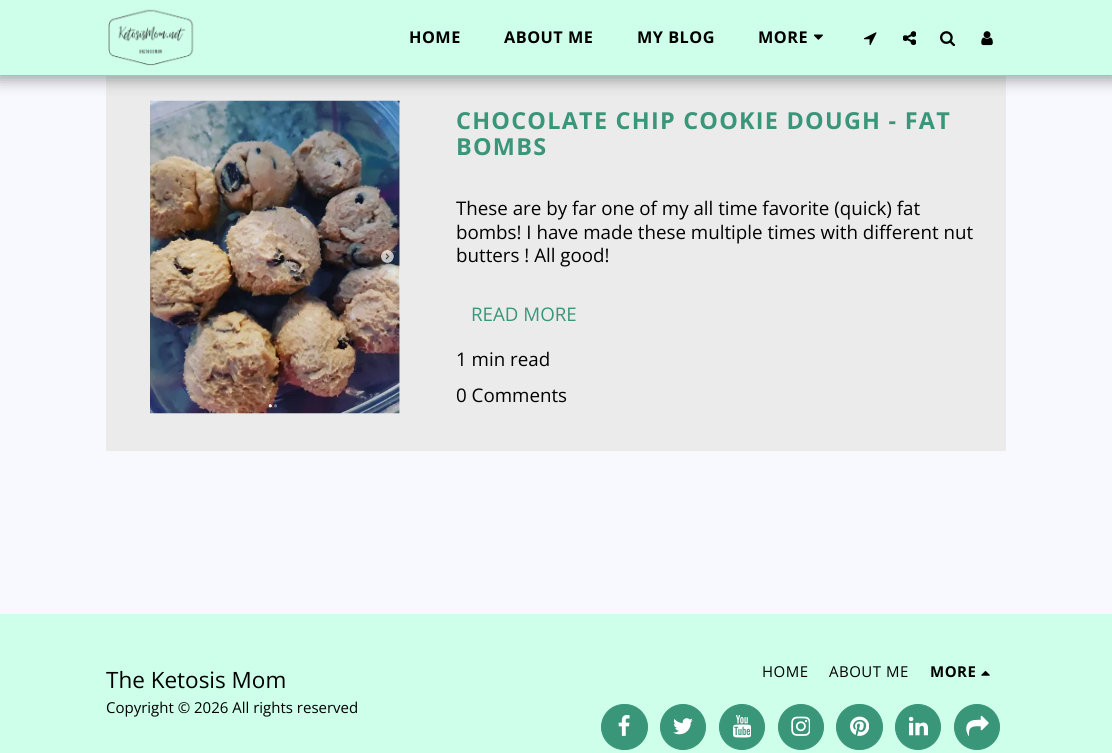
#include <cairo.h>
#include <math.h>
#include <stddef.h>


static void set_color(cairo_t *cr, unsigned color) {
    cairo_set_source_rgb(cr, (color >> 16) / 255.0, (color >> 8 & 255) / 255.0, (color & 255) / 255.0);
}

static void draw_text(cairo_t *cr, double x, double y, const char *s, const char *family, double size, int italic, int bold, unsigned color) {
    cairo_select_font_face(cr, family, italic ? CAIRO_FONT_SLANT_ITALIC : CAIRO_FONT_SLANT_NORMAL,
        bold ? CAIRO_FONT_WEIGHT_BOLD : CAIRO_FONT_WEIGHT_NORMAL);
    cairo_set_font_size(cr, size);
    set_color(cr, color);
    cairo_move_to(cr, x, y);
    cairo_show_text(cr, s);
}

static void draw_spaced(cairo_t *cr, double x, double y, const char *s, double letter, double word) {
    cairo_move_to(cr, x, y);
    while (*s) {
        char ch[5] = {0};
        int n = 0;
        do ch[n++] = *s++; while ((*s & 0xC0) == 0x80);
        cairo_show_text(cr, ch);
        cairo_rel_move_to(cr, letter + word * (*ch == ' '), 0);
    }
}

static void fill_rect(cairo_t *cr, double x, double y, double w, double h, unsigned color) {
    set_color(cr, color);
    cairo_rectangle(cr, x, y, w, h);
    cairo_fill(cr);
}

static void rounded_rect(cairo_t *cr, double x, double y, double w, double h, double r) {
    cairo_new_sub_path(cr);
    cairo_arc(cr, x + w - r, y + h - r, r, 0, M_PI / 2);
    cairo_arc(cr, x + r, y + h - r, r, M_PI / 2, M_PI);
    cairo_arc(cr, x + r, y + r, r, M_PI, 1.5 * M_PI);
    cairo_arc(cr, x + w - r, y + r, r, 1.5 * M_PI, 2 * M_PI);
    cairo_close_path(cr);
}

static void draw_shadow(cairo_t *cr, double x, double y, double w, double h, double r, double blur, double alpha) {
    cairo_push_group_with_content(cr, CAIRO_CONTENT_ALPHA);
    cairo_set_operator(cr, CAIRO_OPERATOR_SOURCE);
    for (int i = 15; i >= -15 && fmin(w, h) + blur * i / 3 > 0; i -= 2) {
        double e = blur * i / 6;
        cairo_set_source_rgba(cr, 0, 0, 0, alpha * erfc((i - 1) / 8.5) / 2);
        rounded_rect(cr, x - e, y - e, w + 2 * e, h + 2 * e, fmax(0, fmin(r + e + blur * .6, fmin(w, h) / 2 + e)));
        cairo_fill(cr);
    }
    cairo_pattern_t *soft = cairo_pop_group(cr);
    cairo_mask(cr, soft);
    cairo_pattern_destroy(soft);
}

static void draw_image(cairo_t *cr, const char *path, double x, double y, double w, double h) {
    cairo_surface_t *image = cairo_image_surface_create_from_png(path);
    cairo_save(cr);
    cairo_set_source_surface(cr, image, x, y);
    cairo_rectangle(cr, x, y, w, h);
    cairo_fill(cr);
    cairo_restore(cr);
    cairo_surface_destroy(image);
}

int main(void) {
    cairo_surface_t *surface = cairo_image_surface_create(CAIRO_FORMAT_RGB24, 1112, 753);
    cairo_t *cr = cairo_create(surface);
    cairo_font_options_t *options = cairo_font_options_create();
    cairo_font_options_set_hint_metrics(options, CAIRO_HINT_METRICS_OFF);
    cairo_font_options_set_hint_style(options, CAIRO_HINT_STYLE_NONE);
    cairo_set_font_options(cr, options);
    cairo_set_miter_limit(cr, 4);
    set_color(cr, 0xF8F8FF);
    cairo_paint(cr);
    fill_rect(cr, 106, 76, 900, 375, 0xEBEBEB);
    draw_image(cr, "assets/img7.png", 150, 100, 250, 314);
    set_color(cr, 0x000000);
    draw_shadow(cr, -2, 0, 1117, 80, 0, 7.5, 0.35);
    fill_rect(cr, 0, 0, 1112, 75, 0xCDFFEB);
    draw_image(cr, "assets/img1.png", 106, 9, 88, 57);
    cairo_select_font_face(cr, "Open Sans", CAIRO_FONT_SLANT_NORMAL, CAIRO_FONT_WEIGHT_BOLD);
    cairo_set_font_size(cr, 16.25);
    set_color(cr, 0x000000);
    draw_spaced(cr, 409, 43, "HOME", 0.5, 0);
    draw_spaced(cr, 504, 43, "ABOUT ME", 0.5, 0);
    draw_spaced(cr, 637, 43, "MY BLOG", 0.5, 0);
    draw_spaced(cr, 758, 43, "MORE", 0.5, 0);
    draw_image(cr, "assets/img2.png", 814, 34, 9, 6);
    draw_image(cr, "assets/img3.png", 864, 32, 13, 13);
    draw_image(cr, "assets/img4.png", 903, 31, 13, 15);
    draw_image(cr, "assets/img5.png", 940, 31, 15, 15);
    draw_image(cr, "assets/img6.png", 981, 31, 12, 15);
    cairo_set_font_size(cr, 23.4);
    set_color(cr, 0x3A9679);
    draw_spaced(cr, 456, 129, "CHOCOLATE CHIP COOKIE DOUGH - FAT", 1.25, 0);
    draw_spaced(cr, 456, 155, "BOMBS", 1.25, 0);
    draw_text(cr, 456, 215, "These are by far one of my all time favorite (quick) fat", "Open Sans", 18.75, 0, 0, 0x000000);
    draw_text(cr, 456, 239, "bombs! I have made these multiple times with different nut", "Open Sans", 18.75, 0, 0, 0x000000);
    draw_text(cr, 456, 262, "butters ! All good!", "Open Sans", 18.75, 0, 0, 0x000000);
    draw_text(cr, 471, 321, "READ MORE", "Open Sans", 18.75, 0, 0, 0x3A9679);
    draw_text(cr, 456, 366, "1 min read", "Open Sans", 18.75, 0, 0, 0x000000);
    draw_text(cr, 456, 402, "0 Comments", "Open Sans", 18.75, 0, 0, 0x000000);
    fill_rect(cr, 0, 614, 1112, 139, 0xCDFFEB);
    draw_text(cr, 106, 688, "The Ketosis Mom", "Open Sans", 22.5, 0, 0, 0x000000);
    draw_text(cr, 106, 713, "Copyright © 2026 All rights reserved", "Open Sans", 15, 0, 0, 0x000000);
    draw_spaced(cr, 762, 677, "HOME", 0.5, 0);
    draw_spaced(cr, 829, 677, "ABOUT ME", 0.5, 0);
    cairo_select_font_face(cr, "Open Sans", CAIRO_FONT_SLANT_NORMAL, CAIRO_FONT_WEIGHT_BOLD);
    draw_spaced(cr, 930, 677, "MORE", 0.5, 0);
    draw_image(cr, "assets/img8.png", 981, 670, 9, 6);
    set_color(cr, 0x3A9679);
    rounded_rect(cr, 601.5, 704.5, 46, 45, 22.5);
    cairo_fill_preserve(cr);
    cairo_set_line_width(cr, 1);
    cairo_stroke(cr);
    draw_image(cr, "assets/img9.png", 618, 715, 12, 21);
    cairo_arc(cr, 683, 727, 22.5, 0, 2 * M_PI);
    cairo_fill_preserve(cr);
    cairo_stroke(cr);
    draw_image(cr, "assets/img10.png", 673, 718, 20, 17);
    cairo_arc(cr, 742, 727, 22.5, 0, 2 * M_PI);
    cairo_fill_preserve(cr);
    cairo_stroke(cr);
    draw_image(cr, "assets/img11.png", 733, 715, 18, 23);
    cairo_arc(cr, 801, 727, 22.5, 0, 2 * M_PI);
    cairo_fill_preserve(cr);
    cairo_stroke(cr);
    draw_image(cr, "assets/img12.png", 791, 716, 19, 20);
    rounded_rect(cr, 836.5, 704.5, 46, 45, 22.5);
    cairo_fill_preserve(cr);
    cairo_stroke(cr);
    draw_image(cr, "assets/img13.png", 850, 716, 19, 20);
    cairo_arc(cr, 918, 727, 22.5, 0, 2 * M_PI);
    cairo_fill_preserve(cr);
    cairo_stroke(cr);
    draw_image(cr, "assets/img14.png", 909, 716, 19, 20);
    cairo_arc(cr, 977, 727, 22.5, 0, 2 * M_PI);
    cairo_fill_preserve(cr);
    cairo_stroke(cr);
    draw_image(cr, "assets/img15.png", 966, 715, 23, 21);
    cairo_surface_write_to_png(surface, "output.png");
    cairo_font_options_destroy(options);
    cairo_destroy(cr);
    cairo_surface_destroy(surface);
    return 0;
}
